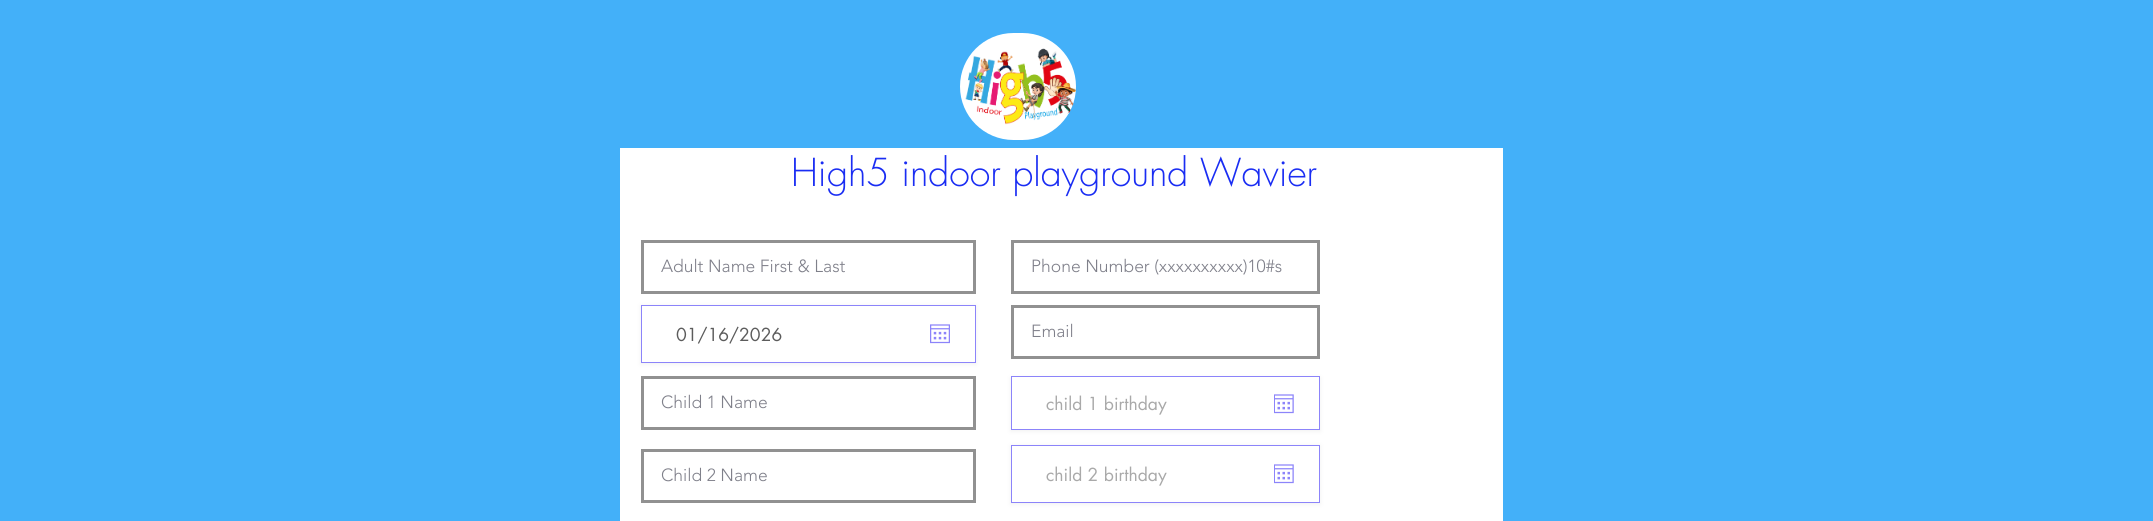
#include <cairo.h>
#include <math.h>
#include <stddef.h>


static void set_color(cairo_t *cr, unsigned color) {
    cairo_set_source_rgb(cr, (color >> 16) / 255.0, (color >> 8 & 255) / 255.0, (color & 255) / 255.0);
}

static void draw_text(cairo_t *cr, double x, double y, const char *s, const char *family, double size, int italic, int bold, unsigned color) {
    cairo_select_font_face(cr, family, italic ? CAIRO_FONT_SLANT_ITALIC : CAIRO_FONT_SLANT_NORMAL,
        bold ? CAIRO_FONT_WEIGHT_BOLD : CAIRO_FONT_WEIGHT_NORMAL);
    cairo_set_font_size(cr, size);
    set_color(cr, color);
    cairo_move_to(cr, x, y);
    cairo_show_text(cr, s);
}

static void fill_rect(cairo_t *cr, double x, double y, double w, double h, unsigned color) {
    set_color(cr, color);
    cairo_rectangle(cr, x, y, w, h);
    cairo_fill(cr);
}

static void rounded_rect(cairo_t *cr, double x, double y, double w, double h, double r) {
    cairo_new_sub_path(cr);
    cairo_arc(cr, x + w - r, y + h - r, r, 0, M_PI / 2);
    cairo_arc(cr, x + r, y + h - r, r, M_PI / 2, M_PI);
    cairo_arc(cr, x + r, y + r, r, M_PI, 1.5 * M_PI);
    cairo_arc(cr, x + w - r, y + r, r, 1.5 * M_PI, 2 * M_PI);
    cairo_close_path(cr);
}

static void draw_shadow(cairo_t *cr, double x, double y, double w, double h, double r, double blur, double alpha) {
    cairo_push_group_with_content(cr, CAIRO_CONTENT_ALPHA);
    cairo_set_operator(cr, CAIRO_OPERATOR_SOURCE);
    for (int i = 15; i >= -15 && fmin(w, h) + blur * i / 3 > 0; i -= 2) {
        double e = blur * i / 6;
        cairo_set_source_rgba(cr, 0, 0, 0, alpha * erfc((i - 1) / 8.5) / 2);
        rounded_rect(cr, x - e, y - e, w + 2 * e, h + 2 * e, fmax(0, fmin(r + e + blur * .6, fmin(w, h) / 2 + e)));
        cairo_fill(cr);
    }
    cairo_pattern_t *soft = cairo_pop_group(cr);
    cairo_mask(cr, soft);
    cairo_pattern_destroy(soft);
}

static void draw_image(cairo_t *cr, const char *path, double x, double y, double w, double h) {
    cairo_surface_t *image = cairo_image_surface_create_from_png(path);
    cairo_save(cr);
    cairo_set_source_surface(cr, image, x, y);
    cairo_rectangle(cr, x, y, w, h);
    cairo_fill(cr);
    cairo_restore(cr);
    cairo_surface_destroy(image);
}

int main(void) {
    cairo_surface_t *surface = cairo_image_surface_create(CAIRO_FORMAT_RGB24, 2153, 521);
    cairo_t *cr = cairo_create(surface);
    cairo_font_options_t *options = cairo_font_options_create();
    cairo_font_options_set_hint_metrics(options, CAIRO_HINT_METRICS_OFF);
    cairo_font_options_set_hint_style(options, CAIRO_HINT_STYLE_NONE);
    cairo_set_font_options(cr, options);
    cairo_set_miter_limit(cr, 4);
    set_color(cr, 0x43B0F9);
    cairo_paint(cr);
    set_color(cr, 0xFFFFFF);
    rounded_rect(cr, 960, 33, 116, 107, 53.5);
    cairo_fill(cr);
    draw_image(cr, "assets/img1.png", 965, 48, 111, 77);
    fill_rect(cr, 620, 148, 883, 373, 0xFFFFFF);
    draw_text(cr, 791, 186, "High5 indoor playground Wavier", "futura Light", 37.5, 0, 0, 0x1A2DF3);
    cairo_rectangle(cr, 642.5, 241.5, 332, 51);
    set_color(cr, 0x919191);
    cairo_set_line_width(cr, 3);
    cairo_stroke(cr);
    draw_text(cr, 661, 272, "Adult Name First & Last", "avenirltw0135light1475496 Light", 17.5, 0, 0, 0x7F808A);
    cairo_rectangle(cr, 1012.5, 241.5, 306, 51);
    set_color(cr, 0x919191);
    cairo_stroke(cr);
    draw_text(cr, 1031, 272, "Phone Number (xxxxxxxxxx)10#s", "avenirltw0135light1475496 Light", 17.5, 0, 0, 0x7F808A);
    set_color(cr, 0xE6E6E6);
    draw_shadow(cr, 641, 306, 335, 58, 0, 2.5, 0.6);
    set_color(cr, 0xFFFFFF);
    cairo_rectangle(cr, 641.5, 305.5, 334, 57);
    cairo_fill_preserve(cr);
    set_color(cr, 0x8C84FA);
    cairo_set_line_width(cr, 1);
    cairo_stroke(cr);
    draw_text(cr, 676, 341, "01/16/2026", "futura", 17.5, 0, 0, 0x5C5C5C);
    draw_image(cr, "assets/img2.png", 930, 324, 20, 20);
    cairo_rectangle(cr, 1012.5, 306.5, 306, 51);
    set_color(cr, 0x919191);
    cairo_set_line_width(cr, 3);
    cairo_stroke(cr);
    draw_text(cr, 1031, 337, "Email", "avenirltw0135light1475496 Light", 17.5, 0, 0, 0x7F808A);
    cairo_rectangle(cr, 642.5, 377.5, 332, 51);
    set_color(cr, 0x919191);
    cairo_stroke(cr);
    draw_text(cr, 661, 408, "Child 1 Name", "avenirltw0135light1475496 Light", 17.5, 0, 0, 0x7F808A);
    set_color(cr, 0xE6E6E6);
    draw_shadow(cr, 1011, 378, 309, 53, 0, 2.5, 0.6);
    set_color(cr, 0xFFFFFF);
    cairo_rectangle(cr, 1011.5, 376.5, 308, 53);
    cairo_fill_preserve(cr);
    set_color(cr, 0x8C84FA);
    cairo_set_line_width(cr, 1);
    cairo_stroke(cr);
    draw_text(cr, 1046, 410, "child 1 birthday", "futura", 17.5, 0, 0, 0xA9A9A9);
    draw_image(cr, "assets/img3.png", 1274, 394, 20, 20);
    cairo_rectangle(cr, 642.5, 450.5, 332, 51);
    set_color(cr, 0x919191);
    cairo_set_line_width(cr, 3);
    cairo_stroke(cr);
    draw_text(cr, 661, 481, "Child 2 Name", "avenirltw0135light1475496 Light", 17.5, 0, 0, 0x7F808A);
    set_color(cr, 0xE6E6E6);
    draw_shadow(cr, 1011, 446, 309, 58, 0, 2.5, 0.6);
    set_color(cr, 0xFFFFFF);
    cairo_rectangle(cr, 1011.5, 445.5, 308, 57);
    cairo_fill_preserve(cr);
    set_color(cr, 0x8C84FA);
    cairo_set_line_width(cr, 1);
    cairo_stroke(cr);
    draw_text(cr, 1046, 481, "child 2 birthday", "futura", 17.5, 0, 0, 0xA9A9A9);
    draw_image(cr, "assets/img3.png", 1274, 464, 20, 20);
    cairo_surface_write_to_png(surface, "output.png");
    cairo_font_options_destroy(options);
    cairo_destroy(cr);
    cairo_surface_destroy(surface);
    return 0;
}
